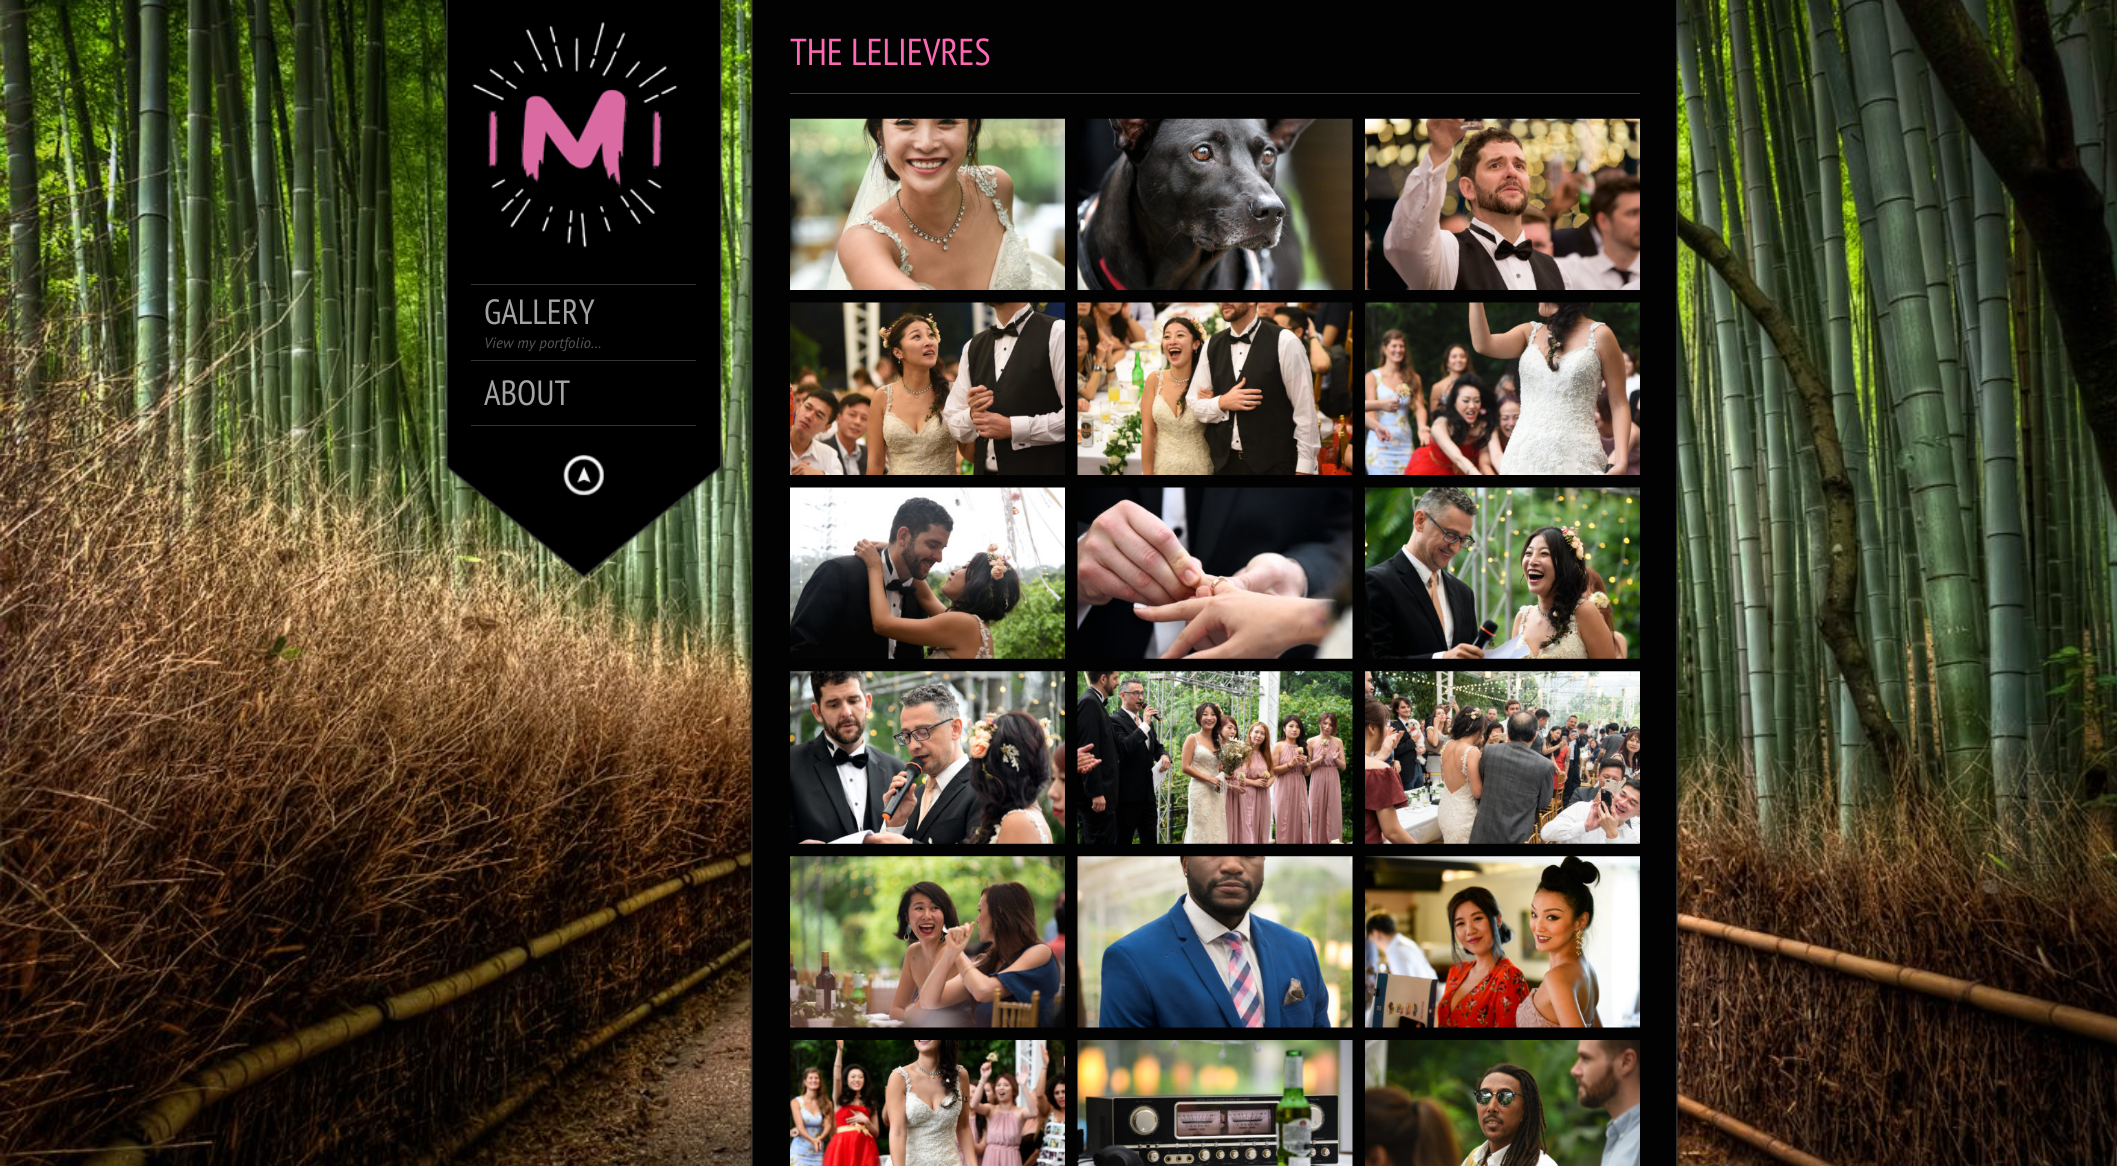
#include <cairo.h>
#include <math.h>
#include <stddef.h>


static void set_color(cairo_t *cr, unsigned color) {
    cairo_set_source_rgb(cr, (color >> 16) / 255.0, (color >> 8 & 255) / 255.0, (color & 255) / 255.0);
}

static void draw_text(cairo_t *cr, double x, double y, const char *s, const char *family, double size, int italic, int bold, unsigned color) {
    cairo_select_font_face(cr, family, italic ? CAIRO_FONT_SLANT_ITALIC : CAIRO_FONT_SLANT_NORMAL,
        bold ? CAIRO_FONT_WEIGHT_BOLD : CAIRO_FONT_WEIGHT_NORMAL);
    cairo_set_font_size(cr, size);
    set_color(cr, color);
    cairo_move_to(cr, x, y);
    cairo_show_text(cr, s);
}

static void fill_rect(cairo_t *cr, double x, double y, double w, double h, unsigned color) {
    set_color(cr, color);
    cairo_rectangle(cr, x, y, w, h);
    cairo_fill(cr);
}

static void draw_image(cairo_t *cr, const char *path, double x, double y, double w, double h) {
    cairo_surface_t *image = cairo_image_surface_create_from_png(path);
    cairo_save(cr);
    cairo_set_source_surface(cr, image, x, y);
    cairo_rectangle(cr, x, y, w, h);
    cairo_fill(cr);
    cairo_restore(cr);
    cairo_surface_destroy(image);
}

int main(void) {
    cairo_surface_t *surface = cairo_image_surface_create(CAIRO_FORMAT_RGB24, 2117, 1166);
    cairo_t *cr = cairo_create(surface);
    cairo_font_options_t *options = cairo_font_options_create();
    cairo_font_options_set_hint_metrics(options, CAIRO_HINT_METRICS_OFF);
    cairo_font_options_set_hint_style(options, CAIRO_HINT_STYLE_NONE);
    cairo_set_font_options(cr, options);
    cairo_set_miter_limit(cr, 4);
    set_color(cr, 0xFFFFFF);
    cairo_paint(cr);
    draw_image(cr, "assets/img1.png", 0, 0, 2117, 1166);
    draw_image(cr, "assets/img2.png", 748, 0, 933, 1166);
    draw_text(cr, 790, 65, "THE LELIEVRES", "PT Sans Narrow", 37.5, 0, 0, 0xFF69B4);
    fill_rect(cr, 790, 93, 850, 1, 0x434343);
    draw_image(cr, "assets/img3.png", 790, 118, 275, 172);
    draw_image(cr, "assets/img4.png", 1077, 118, 276, 172);
    draw_image(cr, "assets/img5.png", 1365, 118, 275, 172);
    draw_image(cr, "assets/img6.png", 790, 302, 275, 173);
    draw_image(cr, "assets/img7.png", 1077, 302, 276, 173);
    draw_image(cr, "assets/img8.png", 1365, 302, 275, 173);
    draw_image(cr, "assets/img9.png", 790, 487, 275, 172);
    draw_image(cr, "assets/img10.png", 1077, 487, 276, 172);
    draw_image(cr, "assets/img11.png", 1365, 487, 275, 172);
    draw_image(cr, "assets/img12.png", 790, 671, 275, 173);
    draw_image(cr, "assets/img13.png", 1077, 671, 276, 173);
    draw_image(cr, "assets/img14.png", 1365, 671, 275, 173);
    draw_image(cr, "assets/img15.png", 790, 856, 275, 172);
    draw_image(cr, "assets/img16.png", 1077, 856, 276, 172);
    draw_image(cr, "assets/img17.png", 1365, 856, 275, 172);
    draw_image(cr, "assets/img18.png", 790, 1040, 275, 126);
    draw_image(cr, "assets/img19.png", 1077, 1040, 276, 126);
    draw_image(cr, "assets/img20.png", 1365, 1040, 275, 126);
    draw_image(cr, "assets/img21.png", 443, 0, 282, 445);
    draw_image(cr, "assets/img22.png", 472, 22, 206, 226);
    fill_rect(cr, 471, 284, 225, 1, 0x343434);
    fill_rect(cr, 471, 360, 225, 1, 0x343434);
    draw_text(cr, 484, 324, "GALLERY", "PT Sans Narrow", 35, 0, 0, 0xA3A3A3);
    draw_text(cr, 484, 348, "View my portfolio…", "PT Sans", 15, 1, 0, 0x555555);
    fill_rect(cr, 471, 425, 225, 1, 0x343434);
    draw_text(cr, 484, 405, "ABOUT", "PT Sans Narrow", 35, 0, 0, 0xA3A3A3);
    draw_image(cr, "assets/img23.png", 443, 445, 282, 135);
    draw_image(cr, "assets/img24.png", 563, 454, 41, 42);
    cairo_surface_write_to_png(surface, "output.png");
    cairo_font_options_destroy(options);
    cairo_destroy(cr);
    cairo_surface_destroy(surface);
    return 0;
}
